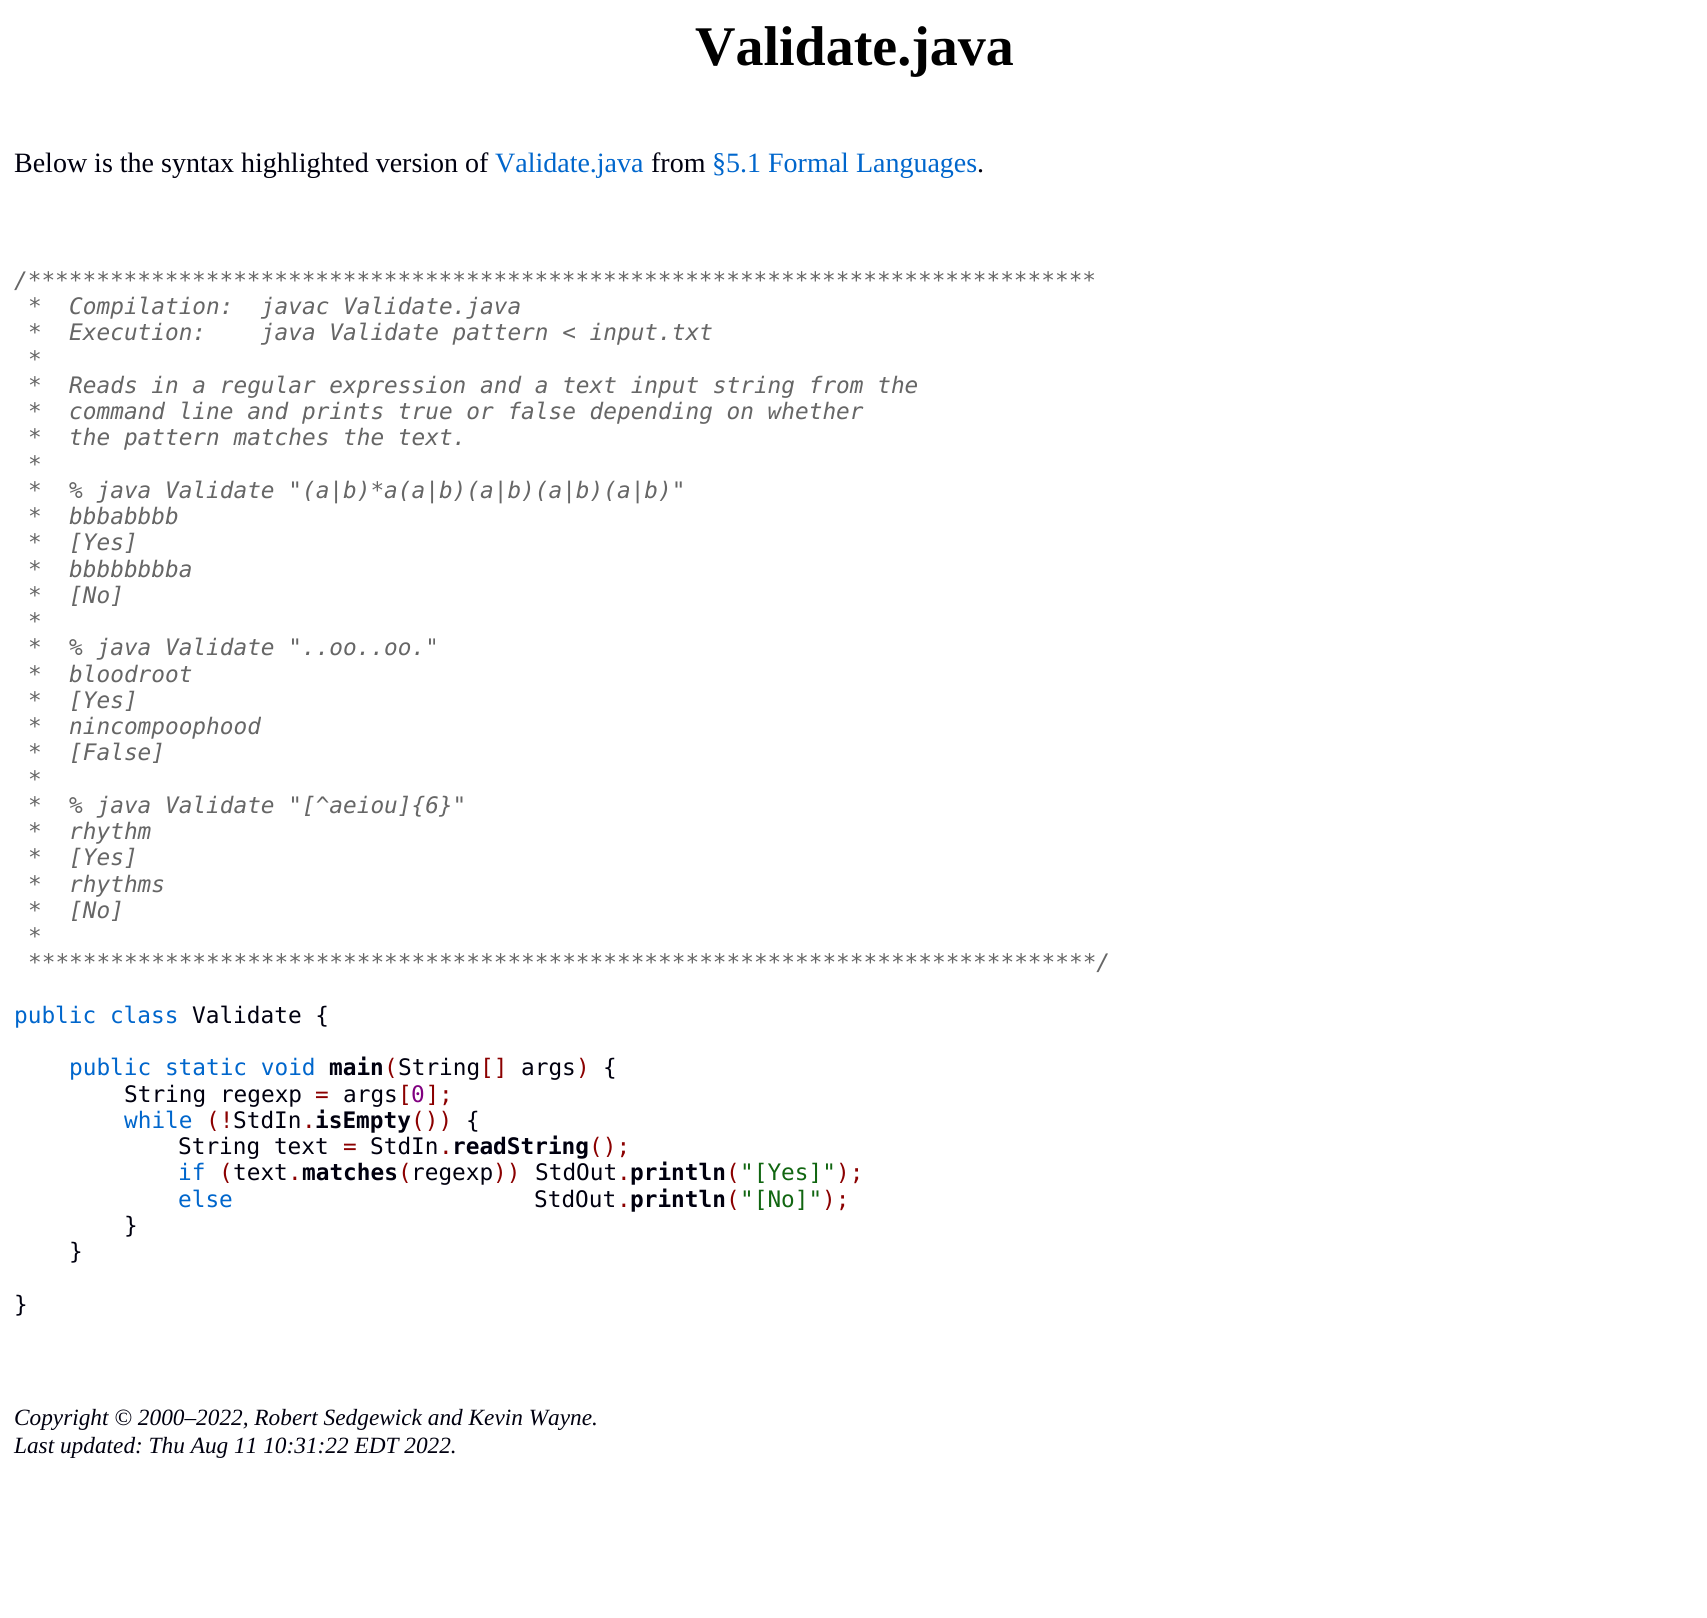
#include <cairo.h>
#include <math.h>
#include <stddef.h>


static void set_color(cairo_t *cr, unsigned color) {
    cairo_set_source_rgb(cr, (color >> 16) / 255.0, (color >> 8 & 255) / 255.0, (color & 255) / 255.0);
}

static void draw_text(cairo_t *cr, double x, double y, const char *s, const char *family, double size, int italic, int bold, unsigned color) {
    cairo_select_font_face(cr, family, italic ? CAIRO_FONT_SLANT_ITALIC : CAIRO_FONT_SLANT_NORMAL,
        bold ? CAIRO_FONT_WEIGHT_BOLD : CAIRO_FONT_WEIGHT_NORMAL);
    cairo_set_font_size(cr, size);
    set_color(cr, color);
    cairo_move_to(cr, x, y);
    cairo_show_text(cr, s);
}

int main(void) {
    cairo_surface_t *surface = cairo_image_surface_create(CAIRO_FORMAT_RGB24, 1707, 1618);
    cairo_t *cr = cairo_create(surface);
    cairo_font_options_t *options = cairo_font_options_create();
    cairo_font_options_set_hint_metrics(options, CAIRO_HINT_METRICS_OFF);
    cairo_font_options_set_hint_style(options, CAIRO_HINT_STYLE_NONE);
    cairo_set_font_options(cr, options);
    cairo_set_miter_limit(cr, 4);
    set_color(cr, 0xFFFFFF);
    cairo_paint(cr);
    draw_text(cr, 695, 65, "Validate.java", "Liberation Serif", 56, 0, 1, 0x000000);
    draw_text(cr, 14, 172, "Below is the syntax highlighted version of", "Liberation Serif", 28, 0, 0, 0x00000F);
    draw_text(cr, 495, 172, "Validate.java", "Liberation Serif", 28, 0, 0, 0x0066CC);
    draw_text(cr, 651, 172, "from", "Liberation Serif", 28, 0, 0, 0x00000F);
    draw_text(cr, 712, 172, "§5.1 Formal Languages", "Liberation Serif", 28, 0, 0, 0x0066CC);
    draw_text(cr, 977, 172, ".", "Liberation Serif", 28, 0, 0, 0x00000F);
    draw_text(cr, 14, 288, "/******************************************************************************", "DejaVu Sans Mono", 22.75, 1, 0, 0x666666);
    draw_text(cr, 28, 314, "*  Compilation:  javac Validate.java", "DejaVu Sans Mono", 22.75, 1, 0, 0x666666);
    draw_text(cr, 28, 340, "*  Execution:    java Validate pattern < input.txt", "DejaVu Sans Mono", 22.75, 1, 0, 0x666666);
    draw_text(cr, 28, 367, "*", "DejaVu Sans Mono", 22.75, 1, 0, 0x666666);
    draw_text(cr, 28, 393, "*  Reads in a regular expression and a text input string from the", "DejaVu Sans Mono", 22.75, 1, 0, 0x666666);
    draw_text(cr, 28, 419, "*  command line and prints true or false depending on whether", "DejaVu Sans Mono", 22.75, 1, 0, 0x666666);
    draw_text(cr, 28, 445, "*  the pattern matches the text.", "DejaVu Sans Mono", 22.75, 1, 0, 0x666666);
    draw_text(cr, 28, 472, "*", "DejaVu Sans Mono", 22.75, 1, 0, 0x666666);
    draw_text(cr, 28, 498, "*  % java Validate \"(a|b)*a(a|b)(a|b)(a|b)(a|b)\"", "DejaVu Sans Mono", 22.75, 1, 0, 0x666666);
    draw_text(cr, 28, 524, "*  bbbabbbb", "DejaVu Sans Mono", 22.75, 1, 0, 0x666666);
    draw_text(cr, 28, 550, "*  [Yes]", "DejaVu Sans Mono", 22.75, 1, 0, 0x666666);
    draw_text(cr, 28, 577, "*  bbbbbbbba", "DejaVu Sans Mono", 22.75, 1, 0, 0x666666);
    draw_text(cr, 28, 603, "*  [No]", "DejaVu Sans Mono", 22.75, 1, 0, 0x666666);
    draw_text(cr, 28, 629, "*", "DejaVu Sans Mono", 22.75, 1, 0, 0x666666);
    draw_text(cr, 28, 655, "*  % java Validate \"..oo..oo.\"", "DejaVu Sans Mono", 22.75, 1, 0, 0x666666);
    draw_text(cr, 28, 682, "*  bloodroot", "DejaVu Sans Mono", 22.75, 1, 0, 0x666666);
    draw_text(cr, 28, 708, "*  [Yes]", "DejaVu Sans Mono", 22.75, 1, 0, 0x666666);
    draw_text(cr, 28, 734, "*  nincompoophood", "DejaVu Sans Mono", 22.75, 1, 0, 0x666666);
    draw_text(cr, 28, 760, "*  [False]", "DejaVu Sans Mono", 22.75, 1, 0, 0x666666);
    draw_text(cr, 28, 787, "*", "DejaVu Sans Mono", 22.75, 1, 0, 0x666666);
    draw_text(cr, 28, 813, "*  % java Validate \"[^aeiou]{6}\"", "DejaVu Sans Mono", 22.75, 1, 0, 0x666666);
    draw_text(cr, 28, 839, "*  rhythm", "DejaVu Sans Mono", 22.75, 1, 0, 0x666666);
    draw_text(cr, 28, 865, "*  [Yes]", "DejaVu Sans Mono", 22.75, 1, 0, 0x666666);
    draw_text(cr, 28, 892, "*  rhythms", "DejaVu Sans Mono", 22.75, 1, 0, 0x666666);
    draw_text(cr, 28, 918, "*  [No]", "DejaVu Sans Mono", 22.75, 1, 0, 0x666666);
    draw_text(cr, 28, 944, "*", "DejaVu Sans Mono", 22.75, 1, 0, 0x666666);
    draw_text(cr, 28, 970, "******************************************************************************/", "DejaVu Sans Mono", 22.75, 1, 0, 0x666666);
    draw_text(cr, 14, 1023, "public class", "DejaVu Sans Mono", 22.75, 0, 0, 0x0066CC);
    draw_text(cr, 192, 1023, "Validate {", "DejaVu Sans Mono", 22.75, 0, 0, 0x00000F);
    draw_text(cr, 69, 1075, "public static void", "DejaVu Sans Mono", 22.75, 0, 0, 0x0066CC);
    draw_text(cr, 329, 1075, "main", "DejaVu Sans Mono", 22.75, 0, 1, 0x00000F);
    draw_text(cr, 384, 1075, "(", "DejaVu Sans Mono", 22.75, 0, 0, 0x8B0000);
    draw_text(cr, 398, 1075, "String", "DejaVu Sans Mono", 22.75, 0, 0, 0x00000F);
    draw_text(cr, 480, 1075, "[]", "DejaVu Sans Mono", 22.75, 0, 0, 0x8B0000);
    draw_text(cr, 521, 1075, "args", "DejaVu Sans Mono", 22.75, 0, 0, 0x00000F);
    draw_text(cr, 576, 1075, ")", "DejaVu Sans Mono", 22.75, 0, 0, 0x8B0000);
    draw_text(cr, 603, 1075, "{", "DejaVu Sans Mono", 22.75, 0, 0, 0x00000F);
    draw_text(cr, 124, 1102, "String regexp", "DejaVu Sans Mono", 22.75, 0, 0, 0x00000F);
    draw_text(cr, 398, 1102, "[ ];", "DejaVu Sans Mono", 22.75, 0, 0, 0x8B0000);
    draw_text(cr, 315, 1102, "=", "DejaVu Sans Mono", 22.75, 0, 0, 0x8B0000);
    draw_text(cr, 343, 1102, "args", "DejaVu Sans Mono", 22.75, 0, 0, 0x00000F);
    draw_text(cr, 411, 1102, "0", "DejaVu Sans Mono", 22.75, 0, 0, 0x800080);
    draw_text(cr, 124, 1128, "while", "DejaVu Sans Mono", 22.75, 0, 0, 0x0066CC);
    draw_text(cr, 206, 1128, "(!", "DejaVu Sans Mono", 22.75, 0, 0, 0x8B0000);
    draw_text(cr, 233, 1128, "StdIn", "DejaVu Sans Mono", 22.75, 0, 0, 0x00000F);
    draw_text(cr, 302, 1128, ".", "DejaVu Sans Mono", 22.75, 0, 0, 0x8B0000);
    draw_text(cr, 315, 1128, "isEmpty", "DejaVu Sans Mono", 22.75, 0, 1, 0x00000F);
    draw_text(cr, 411, 1128, "())", "DejaVu Sans Mono", 22.75, 0, 0, 0x8B0000);
    draw_text(cr, 466, 1128, "{", "DejaVu Sans Mono", 22.75, 0, 0, 0x00000F);
    draw_text(cr, 178, 1154, "String text", "DejaVu Sans Mono", 22.75, 0, 0, 0x00000F);
    draw_text(cr, 343, 1154, "=", "DejaVu Sans Mono", 22.75, 0, 0, 0x8B0000);
    draw_text(cr, 370, 1154, "StdIn", "DejaVu Sans Mono", 22.75, 0, 0, 0x00000F);
    draw_text(cr, 452, 1154, "readString", "DejaVu Sans Mono", 22.75, 0, 1, 0x00000F);
    draw_text(cr, 589, 1154, "();", "DejaVu Sans Mono", 22.75, 0, 0, 0x8B0000);
    draw_text(cr, 439, 1154, ".", "DejaVu Sans Mono", 22.75, 0, 0, 0x8B0000);
    draw_text(cr, 178, 1180, "if", "DejaVu Sans Mono", 22.75, 0, 0, 0x0066CC);
    draw_text(cr, 219, 1180, "(", "DejaVu Sans Mono", 22.75, 0, 0, 0x8B0000);
    draw_text(cr, 233, 1180, "text", "DejaVu Sans Mono", 22.75, 0, 0, 0x00000F);
    draw_text(cr, 288, 1180, ".", "DejaVu Sans Mono", 22.75, 0, 0, 0x8B0000);
    draw_text(cr, 302, 1180, "matches", "DejaVu Sans Mono", 22.75, 0, 1, 0x00000F);
    draw_text(cr, 398, 1180, "(", "DejaVu Sans Mono", 22.75, 0, 0, 0x8B0000);
    draw_text(cr, 411, 1180, "regexp", "DejaVu Sans Mono", 22.75, 0, 0, 0x00000F);
    draw_text(cr, 493, 1180, "))", "DejaVu Sans Mono", 22.75, 0, 0, 0x8B0000);
    draw_text(cr, 535, 1180, "StdOut", "DejaVu Sans Mono", 22.75, 0, 0, 0x00000F);
    draw_text(cr, 617, 1180, ".", "DejaVu Sans Mono", 22.75, 0, 0, 0x8B0000);
    draw_text(cr, 630, 1180, "println", "DejaVu Sans Mono", 22.75, 0, 1, 0x00000F);
    draw_text(cr, 726, 1180, "(", "DejaVu Sans Mono", 22.75, 0, 0, 0x8B0000);
    draw_text(cr, 740, 1180, "\"[Yes]\"", "DejaVu Sans Mono", 22.75, 0, 0, 0x116611);
    draw_text(cr, 836, 1180, ");", "DejaVu Sans Mono", 22.75, 0, 0, 0x8B0000);
    draw_text(cr, 178, 1207, "else", "DejaVu Sans Mono", 22.75, 0, 0, 0x0066CC);
    draw_text(cr, 534, 1207, "StdOut", "DejaVu Sans Mono", 22.75, 0, 0, 0x00000F);
    draw_text(cr, 617, 1207, ".", "DejaVu Sans Mono", 22.75, 0, 0, 0x8B0000);
    draw_text(cr, 630, 1207, "println", "DejaVu Sans Mono", 22.75, 0, 1, 0x00000F);
    draw_text(cr, 726, 1207, "(", "DejaVu Sans Mono", 22.75, 0, 0, 0x8B0000);
    draw_text(cr, 740, 1207, "\"[No]\"", "DejaVu Sans Mono", 22.75, 0, 0, 0x116611);
    draw_text(cr, 822, 1207, ");", "DejaVu Sans Mono", 22.75, 0, 0, 0x8B0000);
    draw_text(cr, 124, 1233, "}", "DejaVu Sans Mono", 22.75, 0, 0, 0x00000F);
    draw_text(cr, 69, 1259, "}", "DejaVu Sans Mono", 22.75, 0, 0, 0x00000F);
    draw_text(cr, 14, 1312, "}", "DejaVu Sans Mono", 22.75, 0, 0, 0x00000F);
    draw_text(cr, 14, 1425, "Copyright © 2000–2022, Robert Sedgewick and Kevin Wayne.", "Liberation Serif", 23.3, 1, 0, 0x00000F);
    draw_text(cr, 14, 1453, "Last updated: Thu Aug 11 10:31:22 EDT 2022.", "Liberation Serif", 23.3, 1, 0, 0x00000F);
    cairo_surface_write_to_png(surface, "output.png");
    cairo_font_options_destroy(options);
    cairo_destroy(cr);
    cairo_surface_destroy(surface);
    return 0;
}
